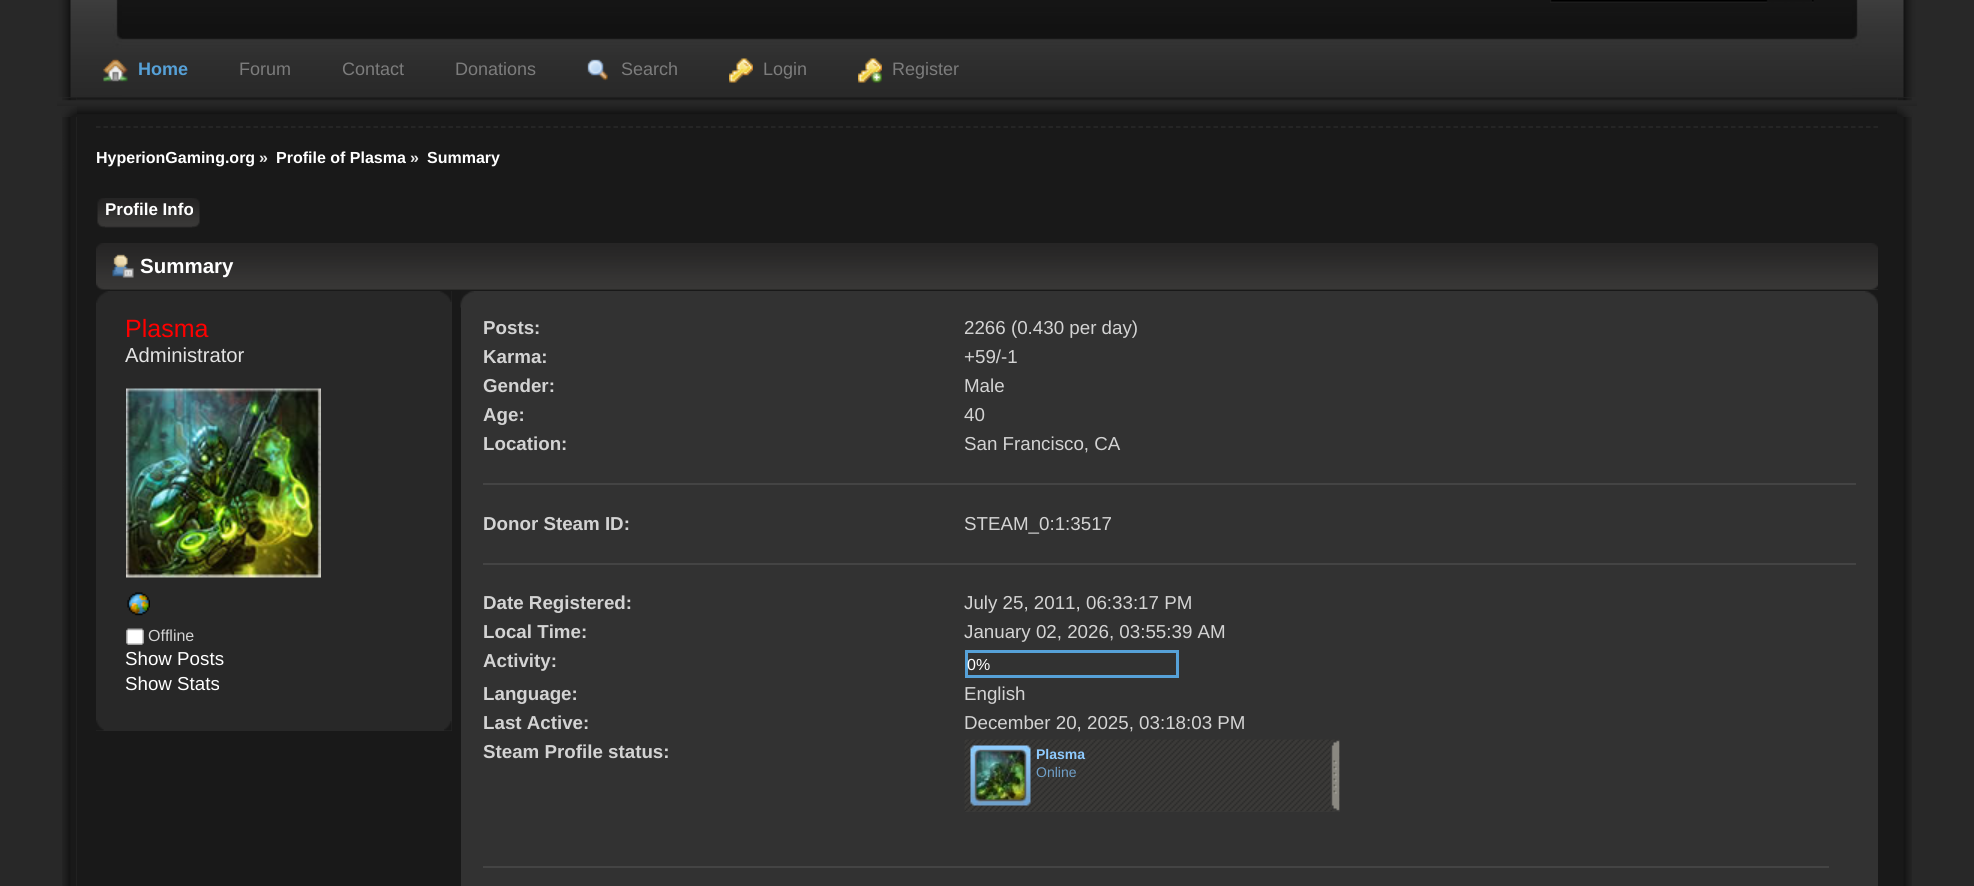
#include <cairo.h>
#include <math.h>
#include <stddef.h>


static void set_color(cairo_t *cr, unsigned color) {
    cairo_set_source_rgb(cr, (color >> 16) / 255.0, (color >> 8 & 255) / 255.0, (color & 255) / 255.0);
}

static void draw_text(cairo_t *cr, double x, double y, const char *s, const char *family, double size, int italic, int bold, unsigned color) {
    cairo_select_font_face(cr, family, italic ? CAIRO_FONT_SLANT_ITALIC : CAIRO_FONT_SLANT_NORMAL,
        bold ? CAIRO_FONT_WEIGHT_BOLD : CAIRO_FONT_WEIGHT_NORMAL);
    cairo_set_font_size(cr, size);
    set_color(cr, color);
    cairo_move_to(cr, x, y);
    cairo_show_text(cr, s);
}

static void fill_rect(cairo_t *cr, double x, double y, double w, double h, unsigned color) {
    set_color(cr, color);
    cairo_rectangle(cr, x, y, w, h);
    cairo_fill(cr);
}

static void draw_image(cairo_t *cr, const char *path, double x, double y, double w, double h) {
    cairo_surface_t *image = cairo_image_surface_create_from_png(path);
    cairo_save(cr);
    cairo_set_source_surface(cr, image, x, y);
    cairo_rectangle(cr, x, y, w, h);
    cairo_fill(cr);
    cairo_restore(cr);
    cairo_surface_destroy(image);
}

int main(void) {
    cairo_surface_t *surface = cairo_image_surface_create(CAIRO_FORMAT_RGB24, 1974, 886);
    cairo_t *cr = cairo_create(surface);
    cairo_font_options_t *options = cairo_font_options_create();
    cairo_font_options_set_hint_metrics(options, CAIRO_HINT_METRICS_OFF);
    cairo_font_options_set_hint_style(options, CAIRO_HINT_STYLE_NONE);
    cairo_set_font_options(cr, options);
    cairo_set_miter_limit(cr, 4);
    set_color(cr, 0x282828);
    cairo_paint(cr);
    draw_image(cr, "assets/img5.png", 62, 97, 15, 4);
    draw_image(cr, "assets/img6.png", 1897, 97, 15, 4);
    draw_image(cr, "assets/img7.png", 76, 97, 1822, 4);
    draw_image(cr, "assets/img1.png", 57, 0, 1860, 98);
    draw_image(cr, "assets/img2.png", 57, 0, 65, 97);
    draw_image(cr, "assets/img3.png", 1852, 0, 65, 97);
    draw_image(cr, "assets/img4.png", 1550, 0, 264, 3);
    draw_image(cr, "assets/img8.png", 103, 58, 25, 24);
    draw_text(cr, 138, 75, "Home", "Liberation Sans", 18, 0, 1, 0x56A1D8);
    draw_text(cr, 239, 75, "Forum", "Liberation Sans", 18, 0, 0, 0x7C7C7C);
    draw_text(cr, 342, 75, "Contact", "Liberation Sans", 18, 0, 0, 0x7C7C7C);
    draw_text(cr, 455, 75, "Donations", "Liberation Sans", 18, 0, 0, 0x7C7C7C);
    draw_image(cr, "assets/img9.png", 587, 59, 21, 22);
    draw_text(cr, 621, 75, "Search", "Liberation Sans", 18, 0, 0, 0x7C7C7C);
    draw_image(cr, "assets/img10.png", 729, 58, 24, 25);
    draw_text(cr, 763, 75, "Login", "Liberation Sans", 18, 0, 0, 0x7C7C7C);
    draw_image(cr, "assets/img11.png", 858, 58, 24, 25);
    draw_text(cr, 892, 75, "Register", "Liberation Sans", 18, 0, 0, 0x7C7C7C);
    draw_image(cr, "assets/img12.png", 57, 100, 1860, 17);
    draw_image(cr, "assets/img13.png", 1897, 106, 20, 11);
    draw_image(cr, "assets/img14.png", 57, 106, 20, 11);
    draw_image(cr, "assets/img15.png", 62, 117, 15, 769);
    draw_image(cr, "assets/img16.png", 1898, 117, 14, 769);
    fill_rect(cr, 77, 117, 1821, 769, 0x191919);
    cairo_new_path(cr);
    cairo_move_to(cr, 96, 127);
    cairo_line_to(cr, 1878, 127);
    set_color(cr, 0x292929);
    cairo_set_line_width(cr, 1.5);
    cairo_set_dash(cr, (double[]){4.5, 3}, 2, 0);
    cairo_stroke(cr);
    draw_text(cr, 96, 163, "HyperionGaming.org", "Liberation Sans", 16, 0, 1, 0xFFFFFF);
    draw_text(cr, 259, 163, "»", "Liberation Sans", 16, 0, 1, 0xEAEAEA);
    draw_text(cr, 276, 163, "Profile of Plasma", "Liberation Sans", 16, 0, 1, 0xFFFFFF);
    draw_text(cr, 410, 163, "»", "Liberation Sans", 16, 0, 1, 0xEAEAEA);
    draw_text(cr, 427, 163, "Summary", "Liberation Sans", 16, 0, 1, 0xFFFFFF);
    draw_image(cr, "assets/img17.png", 105, 198, 95, 30);
    draw_image(cr, "assets/img18.png", 97, 198, 95, 30);
    draw_text(cr, 105, 215, "Profile Info", "Liberation Sans", 17, 0, 1, 0xFFFFFF);
    draw_image(cr, "assets/img19.png", 96, 243, 1782, 47);
    draw_image(cr, "assets/img20.png", 110, 243, 1768, 47);
    draw_image(cr, "assets/img21.png", 112, 254, 22, 24);
    draw_text(cr, 140, 273, "Summary", "Liberation Sans", 20.5, 0, 1, 0xFFFFFF);
    fill_rect(cr, 96, 291, 356, 440, 0x282828);
    draw_image(cr, "assets/img22.png", 96, 291, 12, 12);
    draw_image(cr, "assets/img23.png", 440, 291, 12, 11);
    draw_text(cr, 125, 337, "Plasma", "Liberation Sans", 25, 0, 0, 0xFF0000);
    draw_text(cr, 125, 362, "Administrator", "Liberation Sans", 20.25, 0, 0, 0xE3E3E3);
    draw_image(cr, "assets/img24.png", 126, 388, 195, 190);
    draw_image(cr, "assets/img25.png", 127, 592, 23, 24);
    draw_image(cr, "assets/img26.png", 126, 628, 18, 17);
    draw_text(cr, 148, 641, "Offline", "Liberation Sans", 16, 0, 0, 0xD3D3D3);
    draw_text(cr, 125, 665, "Show Posts", "Liberation Sans", 18.75, 0, 0, 0xFFFFFF);
    draw_text(cr, 125, 690, "Show Stats", "Liberation Sans", 18.75, 0, 0, 0xFFFFFF);
    draw_image(cr, "assets/img27.png", 96, 720, 8, 11);
    draw_image(cr, "assets/img28.png", 444, 721, 8, 10);
    fill_rect(cr, 461, 291, 1417, 595, 0x323232);
    draw_image(cr, "assets/img29.png", 460, 291, 14, 17);
    draw_image(cr, "assets/img30.png", 1865, 291, 13, 13);
    fill_rect(cr, 483, 483, 1373, 2, 0x444444);
    draw_text(cr, 483, 334, "Posts:", "Liberation Sans", 18.75, 0, 1, 0xD3D3D3);
    draw_text(cr, 964, 334, "2266 (0.430 per day)", "Liberation Sans", 18.75, 0, 0, 0xD3D3D3);
    draw_text(cr, 483, 363, "Karma:", "Liberation Sans", 18.75, 0, 1, 0xD3D3D3);
    draw_text(cr, 964, 363, "+59/-1", "Liberation Sans", 18.75, 0, 0, 0xD3D3D3);
    draw_text(cr, 483, 392, "Gender:", "Liberation Sans", 18.75, 0, 1, 0xD3D3D3);
    draw_text(cr, 964, 392, "Male", "Liberation Sans", 18.75, 0, 0, 0xD3D3D3);
    draw_text(cr, 483, 421, "Age:", "Liberation Sans", 18.75, 0, 1, 0xD3D3D3);
    draw_text(cr, 964, 421, "40", "Liberation Sans", 18.75, 0, 0, 0xD3D3D3);
    draw_text(cr, 483, 450, "Location:", "Liberation Sans", 18.75, 0, 1, 0xD3D3D3);
    draw_text(cr, 964, 450, "San Francisco, CA", "Liberation Sans", 18.75, 0, 0, 0xD3D3D3);
    fill_rect(cr, 483, 563, 1373, 2, 0x444444);
    draw_text(cr, 483, 530, "Donor Steam ID:", "Liberation Sans", 18.75, 0, 1, 0xD3D3D3);
    draw_text(cr, 964, 530, "STEAM_0:1:3517", "Liberation Sans", 18.75, 0, 0, 0xD3D3D3);
    draw_text(cr, 483, 609, "Date Registered:", "Liberation Sans", 18.75, 0, 1, 0xD3D3D3);
    draw_text(cr, 964, 609, "July 25, 2011, 06:33:17 PM", "Liberation Sans", 18.75, 0, 0, 0xD3D3D3);
    draw_text(cr, 483, 638, "Local Time:", "Liberation Sans", 18.75, 0, 1, 0xD3D3D3);
    draw_text(cr, 964, 638, "January 02, 2026, 03:55:39 AM", "Liberation Sans", 18.75, 0, 0, 0xD3D3D3);
    draw_text(cr, 483, 667, "Activity:", "Liberation Sans", 18.75, 0, 1, 0xD3D3D3);
    cairo_rectangle(cr, 966.5, 651.5, 211, 25);
    set_color(cr, 0x56A1D8);
    cairo_set_line_width(cr, 3);
    cairo_set_dash(cr, NULL, 0, 0);
    cairo_stroke(cr);
    draw_text(cr, 967, 670, "0%", "Liberation Sans", 16, 0, 0, 0xFFFFFF);
    draw_text(cr, 483, 700, "Language:", "Liberation Sans", 18.75, 0, 1, 0xD3D3D3);
    draw_text(cr, 964, 700, "English", "Liberation Sans", 18.75, 0, 0, 0xD3D3D3);
    draw_text(cr, 483, 729, "Last Active:", "Liberation Sans", 18.75, 0, 1, 0xD3D3D3);
    draw_text(cr, 964, 729, "December 20, 2025, 03:18:03 PM", "Liberation Sans", 18.75, 0, 0, 0xD3D3D3);
    draw_text(cr, 483, 758, "Steam Profile status:", "Liberation Sans", 18.75, 0, 1, 0xD3D3D3);
    fill_rect(cr, 965, 740, 375, 72, 0x3A3A3A);
    draw_image(cr, "assets/img31.png", 964, 739, 376, 73);
    draw_image(cr, "assets/img32.png", 970, 745, 61, 61);
    draw_image(cr, "assets/img33.png", 976, 751, 49, 49);
    draw_text(cr, 1036, 759, "Plasma", "Liberation Sans", 14, 0, 1, 0x8ECBFF);
    draw_text(cr, 1036, 777, "Online", "Liberation Sans", 14, 0, 0, 0x6F9FC8);
    draw_image(cr, "assets/img34.png", 1330, 740, 10, 71);
    fill_rect(cr, 483, 866, 1346, 2, 0x444444);
    cairo_surface_write_to_png(surface, "output.png");
    cairo_font_options_destroy(options);
    cairo_destroy(cr);
    cairo_surface_destroy(surface);
    return 0;
}
